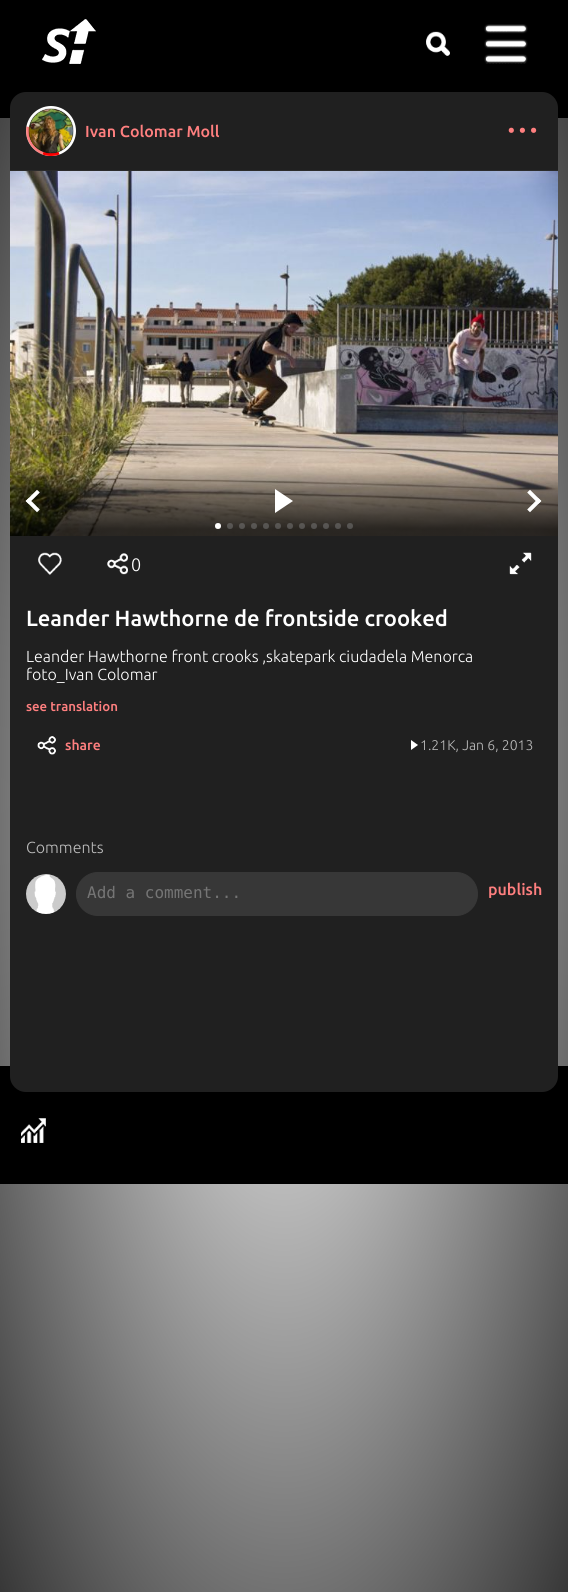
#include <cairo.h>
#include <math.h>
#include <stddef.h>


static void set_color(cairo_t *cr, unsigned color) {
    cairo_set_source_rgb(cr, (color >> 16) / 255.0, (color >> 8 & 255) / 255.0, (color & 255) / 255.0);
}

static void draw_text(cairo_t *cr, double x, double y, const char *s, const char *family, double size, int italic, int bold, unsigned color) {
    cairo_select_font_face(cr, family, italic ? CAIRO_FONT_SLANT_ITALIC : CAIRO_FONT_SLANT_NORMAL,
        bold ? CAIRO_FONT_WEIGHT_BOLD : CAIRO_FONT_WEIGHT_NORMAL);
    cairo_set_font_size(cr, size);
    set_color(cr, color);
    cairo_move_to(cr, x, y);
    cairo_show_text(cr, s);
}

static void fill_rect(cairo_t *cr, double x, double y, double w, double h, unsigned color) {
    set_color(cr, color);
    cairo_rectangle(cr, x, y, w, h);
    cairo_fill(cr);
}

static void rounded_rect(cairo_t *cr, double x, double y, double w, double h, double r) {
    cairo_new_sub_path(cr);
    cairo_arc(cr, x + w - r, y + h - r, r, 0, M_PI / 2);
    cairo_arc(cr, x + r, y + h - r, r, M_PI / 2, M_PI);
    cairo_arc(cr, x + r, y + r, r, M_PI, 1.5 * M_PI);
    cairo_arc(cr, x + w - r, y + r, r, 1.5 * M_PI, 2 * M_PI);
    cairo_close_path(cr);
}

static void draw_shadow(cairo_t *cr, double x, double y, double w, double h, double r, double blur, double alpha) {
    cairo_push_group_with_content(cr, CAIRO_CONTENT_ALPHA);
    cairo_set_operator(cr, CAIRO_OPERATOR_SOURCE);
    for (int i = 15; i >= -15 && fmin(w, h) + blur * i / 3 > 0; i -= 2) {
        double e = blur * i / 6;
        cairo_set_source_rgba(cr, 0, 0, 0, alpha * erfc((i - 1) / 8.5) / 2);
        rounded_rect(cr, x - e, y - e, w + 2 * e, h + 2 * e, fmax(0, fmin(r + e + blur * .6, fmin(w, h) / 2 + e)));
        cairo_fill(cr);
    }
    cairo_pattern_t *soft = cairo_pop_group(cr);
    cairo_mask(cr, soft);
    cairo_pattern_destroy(soft);
}

static void draw_image(cairo_t *cr, const char *path, double x, double y, double w, double h) {
    cairo_surface_t *image = cairo_image_surface_create_from_png(path);
    cairo_save(cr);
    cairo_set_source_surface(cr, image, x, y);
    cairo_rectangle(cr, x, y, w, h);
    cairo_fill(cr);
    cairo_restore(cr);
    cairo_surface_destroy(image);
}

int main(void) {
    cairo_surface_t *surface = cairo_image_surface_create(CAIRO_FORMAT_RGB24, 568, 1592);
    cairo_t *cr = cairo_create(surface);
    cairo_font_options_t *options = cairo_font_options_create();
    cairo_font_options_set_hint_metrics(options, CAIRO_HINT_METRICS_OFF);
    cairo_font_options_set_hint_style(options, CAIRO_HINT_STYLE_NONE);
    cairo_set_font_options(cr, options);
    cairo_set_miter_limit(cr, 4);
    cairo_pattern_t *gradient;
    set_color(cr, 0xFFFFFF);
    cairo_paint(cr);
    gradient = cairo_pattern_create_radial(0, 0, 0, 0, 0, 1);
    cairo_pattern_set_matrix(gradient, &(cairo_matrix_t){1.0 / 402, 0, 0, 1.0 / 1126, -1.0 * 284 / 402, -1.0 * 796 / 1126});
    cairo_pattern_add_color_stop_rgba(gradient, 0, 1, 1, 1, 1);
    cairo_pattern_add_color_stop_rgba(gradient, 1, 0.216, 0.216, 0.216, 1);
    cairo_set_source(cr, gradient);
    cairo_pattern_destroy(gradient);
    cairo_rectangle(cr, 0, 118, 568, 1474);
    cairo_fill(cr);
    fill_rect(cr, 0, 0, 568, 118, 0x000000);
    draw_image(cr, "assets/img1.png", 42, 19, 54, 45);
    draw_image(cr, "assets/img2.png", 426, 31, 24, 25);
    draw_image(cr, "assets/img3.png", 484, 24, 44, 40);
    fill_rect(cr, 0, 1066, 568, 118, 0x000000);
    set_color(cr, 0x202020);
    rounded_rect(cr, 10, 92, 548, 1000, 16);
    cairo_fill(cr);
    set_color(cr, 0xFFFFFF);
    cairo_arc(cr, 51, 131, 25, 0, 2 * M_PI);
    cairo_fill(cr);
    cairo_set_source_rgba(cr, 1, 0, 0, 0.5);
    cairo_new_path(cr);
    cairo_move_to(cr, 51, 131);
    cairo_line_to(cr, 42.5, 154.5);
    cairo_curve_to(cr, 37, 152.5, 32.5, 148.5, 29.5, 143.5);
    cairo_close_path(cr);
    cairo_fill(cr);
    cairo_new_path(cr);
    cairo_move_to(cr, 51, 131);
    cairo_line_to(cr, 29.5, 143.5);
    cairo_curve_to(cr, 26.5, 138.5, 25.5, 132.5, 26.5, 126.5);
    cairo_close_path(cr);
    cairo_fill(cr);
    set_color(cr, 0xFF0000);
    cairo_new_path(cr);
    cairo_move_to(cr, 51, 131);
    cairo_line_to(cr, 59.5, 154.5);
    cairo_curve_to(cr, 54, 156.5, 48, 156.5, 42.5, 154.5);
    cairo_close_path(cr);
    cairo_fill(cr);
    set_color(cr, 0x202020);
    draw_shadow(cr, 29, 109, 44, 44, 22, 0.5, 1);
    set_color(cr, 0x000000);
    cairo_arc(cr, 51, 131, 22, 0, 2 * M_PI);
    cairo_fill(cr);
    draw_image(cr, "assets/img4.png", 29, 109, 44, 44);
    draw_text(cr, 85, 137, "Ivan Colomar Moll", "Ubuntu Medium", 16, 0, 0, 0xFF7F7F);
    cairo_new_path(cr);
    cairo_arc(cr, 511.3, 130.3, 2.6, 0, 2 * M_PI);
    cairo_fill(cr);
    cairo_arc(cr, 522.4, 130.3, 2.6, 0, 2 * M_PI);
    cairo_fill(cr);
    cairo_arc(cr, 533.6, 130.3, 2.6, 0, 2 * M_PI);
    cairo_fill(cr);
    fill_rect(cr, 10, 170, 548, 1, 0x2B2B2B);
    draw_image(cr, "assets/img5.png", 10, 171, 548, 296);
    draw_image(cr, "assets/img6.png", 10, 467, 548, 69);
    draw_image(cr, "assets/img7.png", 38, 552, 24, 23);
    draw_image(cr, "assets/img8.png", 107, 553, 21, 22);
    draw_text(cr, 131, 571, "0", "Ubuntu Light", 18, 0, 0, 0xFFFFFF);
    draw_image(cr, "assets/img9.png", 509, 552, 23, 23);
    draw_text(cr, 26, 626, "Leander Hawthorne de frontside crooked", "Ubuntu Medium", 22, 0, 0, 0xFFFFFF);
    draw_text(cr, 26, 662, "Leander Hawthorne front crooks ,skatepark ciudadela Menorca", "Ubuntu Light", 16, 0, 0, 0xFFFFFF);
    draw_text(cr, 26, 680, "foto_Ivan Colomar", "Ubuntu Light", 16, 0, 0, 0xFFFFFF);
    draw_text(cr, 26, 711, "see translation", "Ubuntu Medium", 13.25, 0, 0, 0xFF7F7F);
    draw_image(cr, "assets/img10.png", 37, 736, 19, 19);
    draw_text(cr, 65, 750, "share", "Ubuntu Medium", 14, 0, 0, 0xFF7F7F);
    set_color(cr, 0xFFFFFF);
    cairo_new_path(cr);
    cairo_move_to(cr, 411, 750);
    cairo_line_to(cr, 411, 740);
    cairo_line_to(cr, 418, 745);
    cairo_close_path(cr);
    cairo_fill(cr);
    draw_text(cr, 420, 750, "1.21K, Jan 6, 2013", "Ubuntu Light", 14, 0, 0, 0xBBBBBB);
    draw_text(cr, 26, 853, "Comments", "Ubuntu Light", 16, 0, 0, 0xBBBBBB);
    set_color(cr, 0x000000);
    cairo_new_path(cr);
    cairo_arc(cr, 46, 894, 20, 0, 2 * M_PI);
    cairo_fill(cr);
    draw_image(cr, "assets/img11.png", 26, 874, 40, 40);
    set_color(cr, 0x373737);
    rounded_rect(cr, 76.5, 872.5, 401, 43, 21.5);
    cairo_fill_preserve(cr);
    cairo_set_line_width(cr, 1);
    cairo_stroke(cr);
    draw_text(cr, 87, 898, "Add a comment...", "DejaVu Sans Mono", 16, 0, 0, 0x757575);
    draw_text(cr, 488, 895, "publish", "Ubuntu Medium", 16, 0, 0, 0xFF7F7F);
    draw_image(cr, "assets/img12.png", 21, 1118, 25, 25);
    cairo_surface_write_to_png(surface, "output.png");
    cairo_font_options_destroy(options);
    cairo_destroy(cr);
    cairo_surface_destroy(surface);
    return 0;
}
